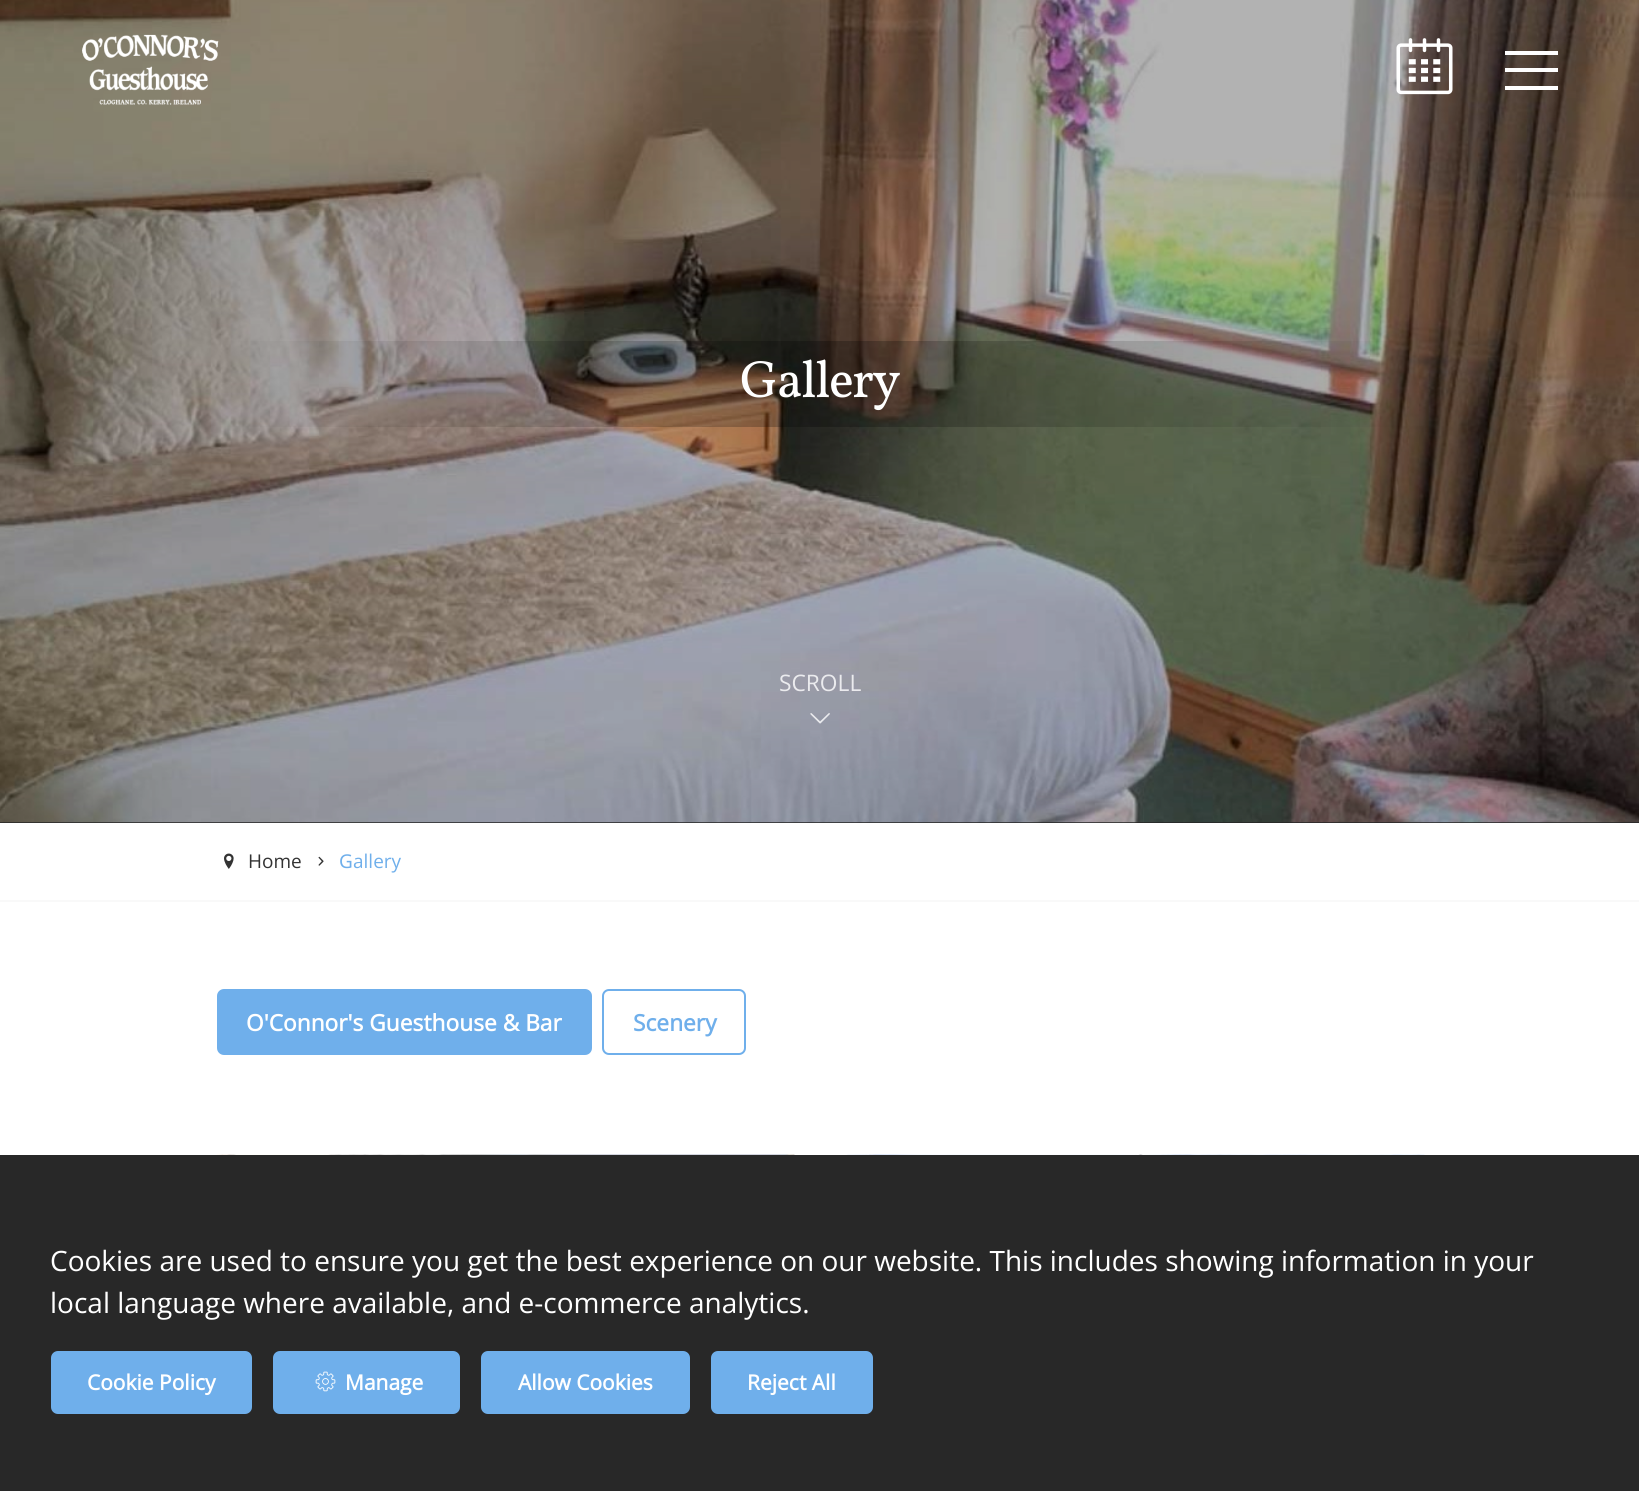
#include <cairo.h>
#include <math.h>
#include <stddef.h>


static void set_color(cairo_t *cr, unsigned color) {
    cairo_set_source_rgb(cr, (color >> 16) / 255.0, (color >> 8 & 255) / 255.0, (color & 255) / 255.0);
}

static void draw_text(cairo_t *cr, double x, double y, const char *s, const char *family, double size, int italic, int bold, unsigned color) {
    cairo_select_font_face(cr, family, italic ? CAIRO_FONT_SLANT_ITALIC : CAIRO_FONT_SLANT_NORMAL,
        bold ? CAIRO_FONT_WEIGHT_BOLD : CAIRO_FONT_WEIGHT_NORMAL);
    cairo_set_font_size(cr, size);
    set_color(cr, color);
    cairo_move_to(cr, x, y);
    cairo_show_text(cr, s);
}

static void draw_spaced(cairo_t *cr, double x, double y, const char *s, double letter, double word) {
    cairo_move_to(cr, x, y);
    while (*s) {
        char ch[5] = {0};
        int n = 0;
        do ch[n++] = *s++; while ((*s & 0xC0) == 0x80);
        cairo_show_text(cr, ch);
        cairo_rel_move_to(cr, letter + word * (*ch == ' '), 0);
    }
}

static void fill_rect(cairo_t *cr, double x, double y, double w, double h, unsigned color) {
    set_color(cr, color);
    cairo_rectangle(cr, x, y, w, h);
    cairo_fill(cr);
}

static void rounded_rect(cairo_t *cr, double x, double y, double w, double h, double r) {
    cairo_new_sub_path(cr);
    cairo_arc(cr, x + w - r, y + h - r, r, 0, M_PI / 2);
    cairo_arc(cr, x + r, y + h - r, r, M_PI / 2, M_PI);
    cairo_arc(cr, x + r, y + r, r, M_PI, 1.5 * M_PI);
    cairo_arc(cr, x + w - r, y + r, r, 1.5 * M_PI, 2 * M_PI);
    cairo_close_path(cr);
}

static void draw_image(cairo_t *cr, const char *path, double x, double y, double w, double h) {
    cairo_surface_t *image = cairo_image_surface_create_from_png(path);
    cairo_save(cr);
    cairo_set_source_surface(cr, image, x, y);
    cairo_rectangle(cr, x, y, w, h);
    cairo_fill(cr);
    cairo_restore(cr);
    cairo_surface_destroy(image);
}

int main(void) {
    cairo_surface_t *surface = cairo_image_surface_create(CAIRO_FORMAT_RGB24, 1639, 1491);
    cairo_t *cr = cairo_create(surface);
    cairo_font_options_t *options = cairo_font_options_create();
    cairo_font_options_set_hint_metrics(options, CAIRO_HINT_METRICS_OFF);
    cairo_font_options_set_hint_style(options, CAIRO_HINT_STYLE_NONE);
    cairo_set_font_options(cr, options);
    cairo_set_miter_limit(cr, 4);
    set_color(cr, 0xFFFFFF);
    cairo_paint(cr);
    fill_rect(cr, 0, 822, 1639, 1, 0x242424);
    draw_image(cr, "assets/img3.png", 0, 0, 1639, 823);
    draw_image(cr, "assets/img1.png", 82, 34, 137, 71);
    draw_image(cr, "assets/img2.png", 1396, 38, 57, 57);
    fill_rect(cr, 1505, 68, 53, 4, 0xFFFFFF);
    fill_rect(cr, 1505, 51, 53, 4, 0xFFFFFF);
    fill_rect(cr, 1505, 86, 53, 4, 0xFFFFFF);
    cairo_select_font_face(cr, "Vollkorn", CAIRO_FONT_SLANT_NORMAL, CAIRO_FONT_WEIGHT_NORMAL);
    cairo_set_font_size(cr, 52.5);
    draw_spaced(cr, 740, 397, "Gallery", -1.75, 0);
    draw_text(cr, 779, 691, "SCROLL", "Open Sans", 22.75, 0, 0, 0xEBEBEE);
    draw_image(cr, "assets/img4.png", 810, 713, 20, 11);
    fill_rect(cr, 0, 900, 1639, 2, 0xF9F9F9);
    draw_image(cr, "assets/img5.png", 224, 853, 10, 16);
    draw_text(cr, 248, 868, "Home", "Open Sans", 19, 0, 0, 0x333333);
    draw_image(cr, "assets/img6.png", 318, 856, 6, 10);
    draw_text(cr, 339, 868, "G", "Noto Sans", 19, 0, 0, 0x6FAFEB);
    draw_text(cr, 353, 868, "allery", "Open Sans", 19, 0, 0, 0x6FAFEB);
    rounded_rect(cr, 218, 990, 373, 64, 6);
    cairo_fill_preserve(cr);
    cairo_stroke(cr);
    draw_text(cr, 246, 1031, "O'Connor's Guesthouse & Bar", "Open Sans", 22.75, 0, 1, 0xFFFFFF);
    rounded_rect(cr, 603, 990, 142, 64, 6);
    set_color(cr, 0x6FAFEB);
    cairo_stroke(cr);
    draw_text(cr, 633, 1031, "Scenery", "Open Sans", 22.75, 0, 1, 0x6FAFEB);
    draw_image(cr, "assets/img7.png", 216, 1154, 579, 1);
    draw_image(cr, "assets/img8.png", 846, 1154, 579, 1);
    fill_rect(cr, 0, 1155, 1639, 336, 0x282828);
    draw_text(cr, 50, 1271, "Cookies are used to ensure you get the best experience on our website. This includes showing information in your", "Open Sans", 28, 0, 0, 0xFFFFFF);
    draw_text(cr, 50, 1313, "local language where available, and e-commerce analytics.", "Open Sans", 28, 0, 0, 0xFFFFFF);
    set_color(cr, 0x6FAFEB);
    rounded_rect(cr, 52, 1352, 199, 61, 6);
    cairo_fill_preserve(cr);
    cairo_stroke(cr);
    draw_text(cr, 87, 1390, "Cookie Policy", "Open Sans", 21, 0, 1, 0xFFFFFF);
    set_color(cr, 0x6FAFEB);
    rounded_rect(cr, 274, 1352, 185, 61, 6);
    cairo_fill_preserve(cr);
    cairo_stroke(cr);
    draw_image(cr, "assets/img9.png", 315, 1371, 21, 21);
    draw_text(cr, 345, 1390, "Manage", "Open Sans", 21, 0, 1, 0xFFFFFF);
    set_color(cr, 0x6FAFEB);
    rounded_rect(cr, 482, 1352, 207, 61, 6);
    cairo_fill_preserve(cr);
    cairo_stroke(cr);
    draw_text(cr, 518, 1390, "Allow Cookies", "Open Sans", 21, 0, 1, 0xFFFFFF);
    set_color(cr, 0x6FAFEB);
    rounded_rect(cr, 712, 1352, 160, 61, 6);
    cairo_fill_preserve(cr);
    cairo_stroke(cr);
    draw_text(cr, 747, 1390, "Reject All", "Open Sans", 21, 0, 1, 0xFFFFFF);
    cairo_surface_write_to_png(surface, "output.png");
    cairo_font_options_destroy(options);
    cairo_destroy(cr);
    cairo_surface_destroy(surface);
    return 0;
}
